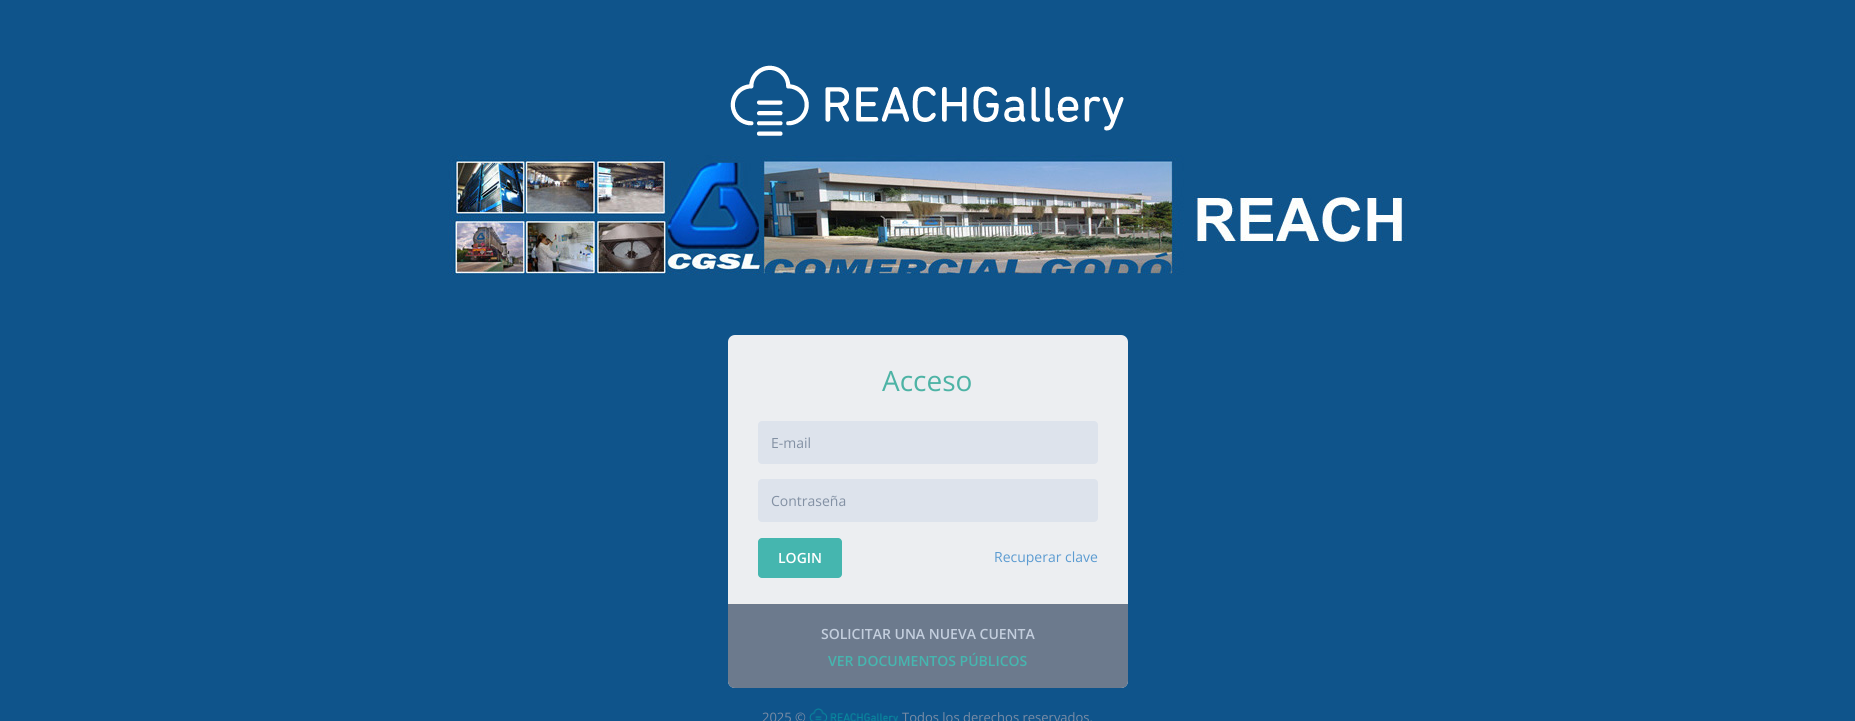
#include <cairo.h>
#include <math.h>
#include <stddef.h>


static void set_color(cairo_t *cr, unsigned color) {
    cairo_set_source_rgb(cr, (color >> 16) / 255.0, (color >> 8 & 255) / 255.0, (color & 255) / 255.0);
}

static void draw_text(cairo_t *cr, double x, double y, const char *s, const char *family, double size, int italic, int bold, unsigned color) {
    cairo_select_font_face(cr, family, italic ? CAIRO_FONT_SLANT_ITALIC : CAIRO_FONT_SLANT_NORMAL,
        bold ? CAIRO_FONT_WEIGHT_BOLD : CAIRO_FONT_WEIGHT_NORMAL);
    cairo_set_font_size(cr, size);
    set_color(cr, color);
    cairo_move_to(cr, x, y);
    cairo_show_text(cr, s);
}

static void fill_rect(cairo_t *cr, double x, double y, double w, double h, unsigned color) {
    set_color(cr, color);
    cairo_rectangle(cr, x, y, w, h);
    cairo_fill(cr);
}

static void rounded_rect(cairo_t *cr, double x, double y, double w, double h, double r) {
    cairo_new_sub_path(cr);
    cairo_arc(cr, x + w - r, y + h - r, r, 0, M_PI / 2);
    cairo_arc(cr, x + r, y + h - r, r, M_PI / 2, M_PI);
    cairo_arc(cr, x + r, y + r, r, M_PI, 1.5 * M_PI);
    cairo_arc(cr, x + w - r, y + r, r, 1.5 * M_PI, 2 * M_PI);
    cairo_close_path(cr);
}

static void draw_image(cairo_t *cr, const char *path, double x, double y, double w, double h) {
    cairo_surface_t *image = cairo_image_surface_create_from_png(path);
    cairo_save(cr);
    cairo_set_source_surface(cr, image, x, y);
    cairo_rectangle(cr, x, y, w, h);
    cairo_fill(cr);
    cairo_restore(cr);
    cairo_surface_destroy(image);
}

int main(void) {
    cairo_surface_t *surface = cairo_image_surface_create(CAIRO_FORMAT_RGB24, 1855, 721);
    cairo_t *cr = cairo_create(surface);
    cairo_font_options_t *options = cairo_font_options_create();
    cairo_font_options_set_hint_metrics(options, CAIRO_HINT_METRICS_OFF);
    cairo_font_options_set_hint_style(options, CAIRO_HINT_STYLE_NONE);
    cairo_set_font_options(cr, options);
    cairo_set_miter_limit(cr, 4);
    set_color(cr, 0x0F548B);
    cairo_paint(cr);
    draw_image(cr, "assets/img1.png", 730, 65, 394, 71);
    draw_image(cr, "assets/img2.png", 448, 155, 960, 120);
    set_color(cr, 0xECEEF1);
    rounded_rect(cr, 728, 335, 400, 353, 7);
    cairo_fill(cr);
    draw_text(cr, 882, 391, "Acceso", "Open Sans", 28, 0, 0, 0x4DB3A5);
    set_color(cr, 0xDDE3EC);
    rounded_rect(cr, 758.5, 421.5, 339, 42, 3.5);
    cairo_fill_preserve(cr);
    cairo_set_line_width(cr, 1);
    cairo_stroke(cr);
    draw_text(cr, 771, 448, "E-mail", "Open Sans", 14, 0, 0, 0x8290A3);
    set_color(cr, 0xDDE3EC);
    rounded_rect(cr, 758.5, 479.5, 339, 42, 3.5);
    cairo_fill_preserve(cr);
    cairo_stroke(cr);
    draw_text(cr, 771, 506, "Contraseña", "Open Sans", 14, 0, 0, 0x8290A3);
    fill_rect(cr, 728, 603, 400, 1, 0xEEEEEE);
    set_color(cr, 0x45B6AF);
    rounded_rect(cr, 758, 538, 84, 40, 4);
    cairo_fill(cr);
    draw_text(cr, 778, 563, "LOGIN", "Open Sans SemiBold", 14, 0, 0, 0xFFFFFF);
    draw_text(cr, 994, 562, "Recuperar clave", "Open Sans", 14, 0, 0, 0x5B9BD1);
    fill_rect(cr, 728, 604, 400, 27, 0x6C7A8D);
    cairo_new_path(cr);
    cairo_move_to(cr, 728, 631);
    cairo_line_to(cr, 1128, 631);
    cairo_line_to(cr, 1128, 681);
    cairo_curve_to(cr, 1128, 685, 1125, 688, 1121, 688);
    cairo_line_to(cr, 735, 688);
    cairo_curve_to(cr, 731, 688, 728, 685, 728, 681);
    cairo_close_path(cr);
    cairo_fill(cr);
    draw_text(cr, 821, 639, "SOLICITAR UNA NUEVA CUENTA", "Open Sans SemiBold", 14, 0, 0, 0xC3CEDD);
    draw_text(cr, 828, 666, "VER DOCUMENTOS PÚBLICOS", "Open Sans SemiBold", 14, 0, 0, 0x45B6AF);
    draw_text(cr, 762, 722, "2025 ©", "Open Sans", 13, 0, 0, 0x7A8CA5);
    draw_image(cr, "assets/img3.png", 809, 708, 89, 13);
    draw_text(cr, 902, 722, "Todos los derechos reservados.", "Open Sans", 13, 0, 0, 0x7A8CA5);
    cairo_surface_write_to_png(surface, "output.png");
    cairo_font_options_destroy(options);
    cairo_destroy(cr);
    cairo_surface_destroy(surface);
    return 0;
}
